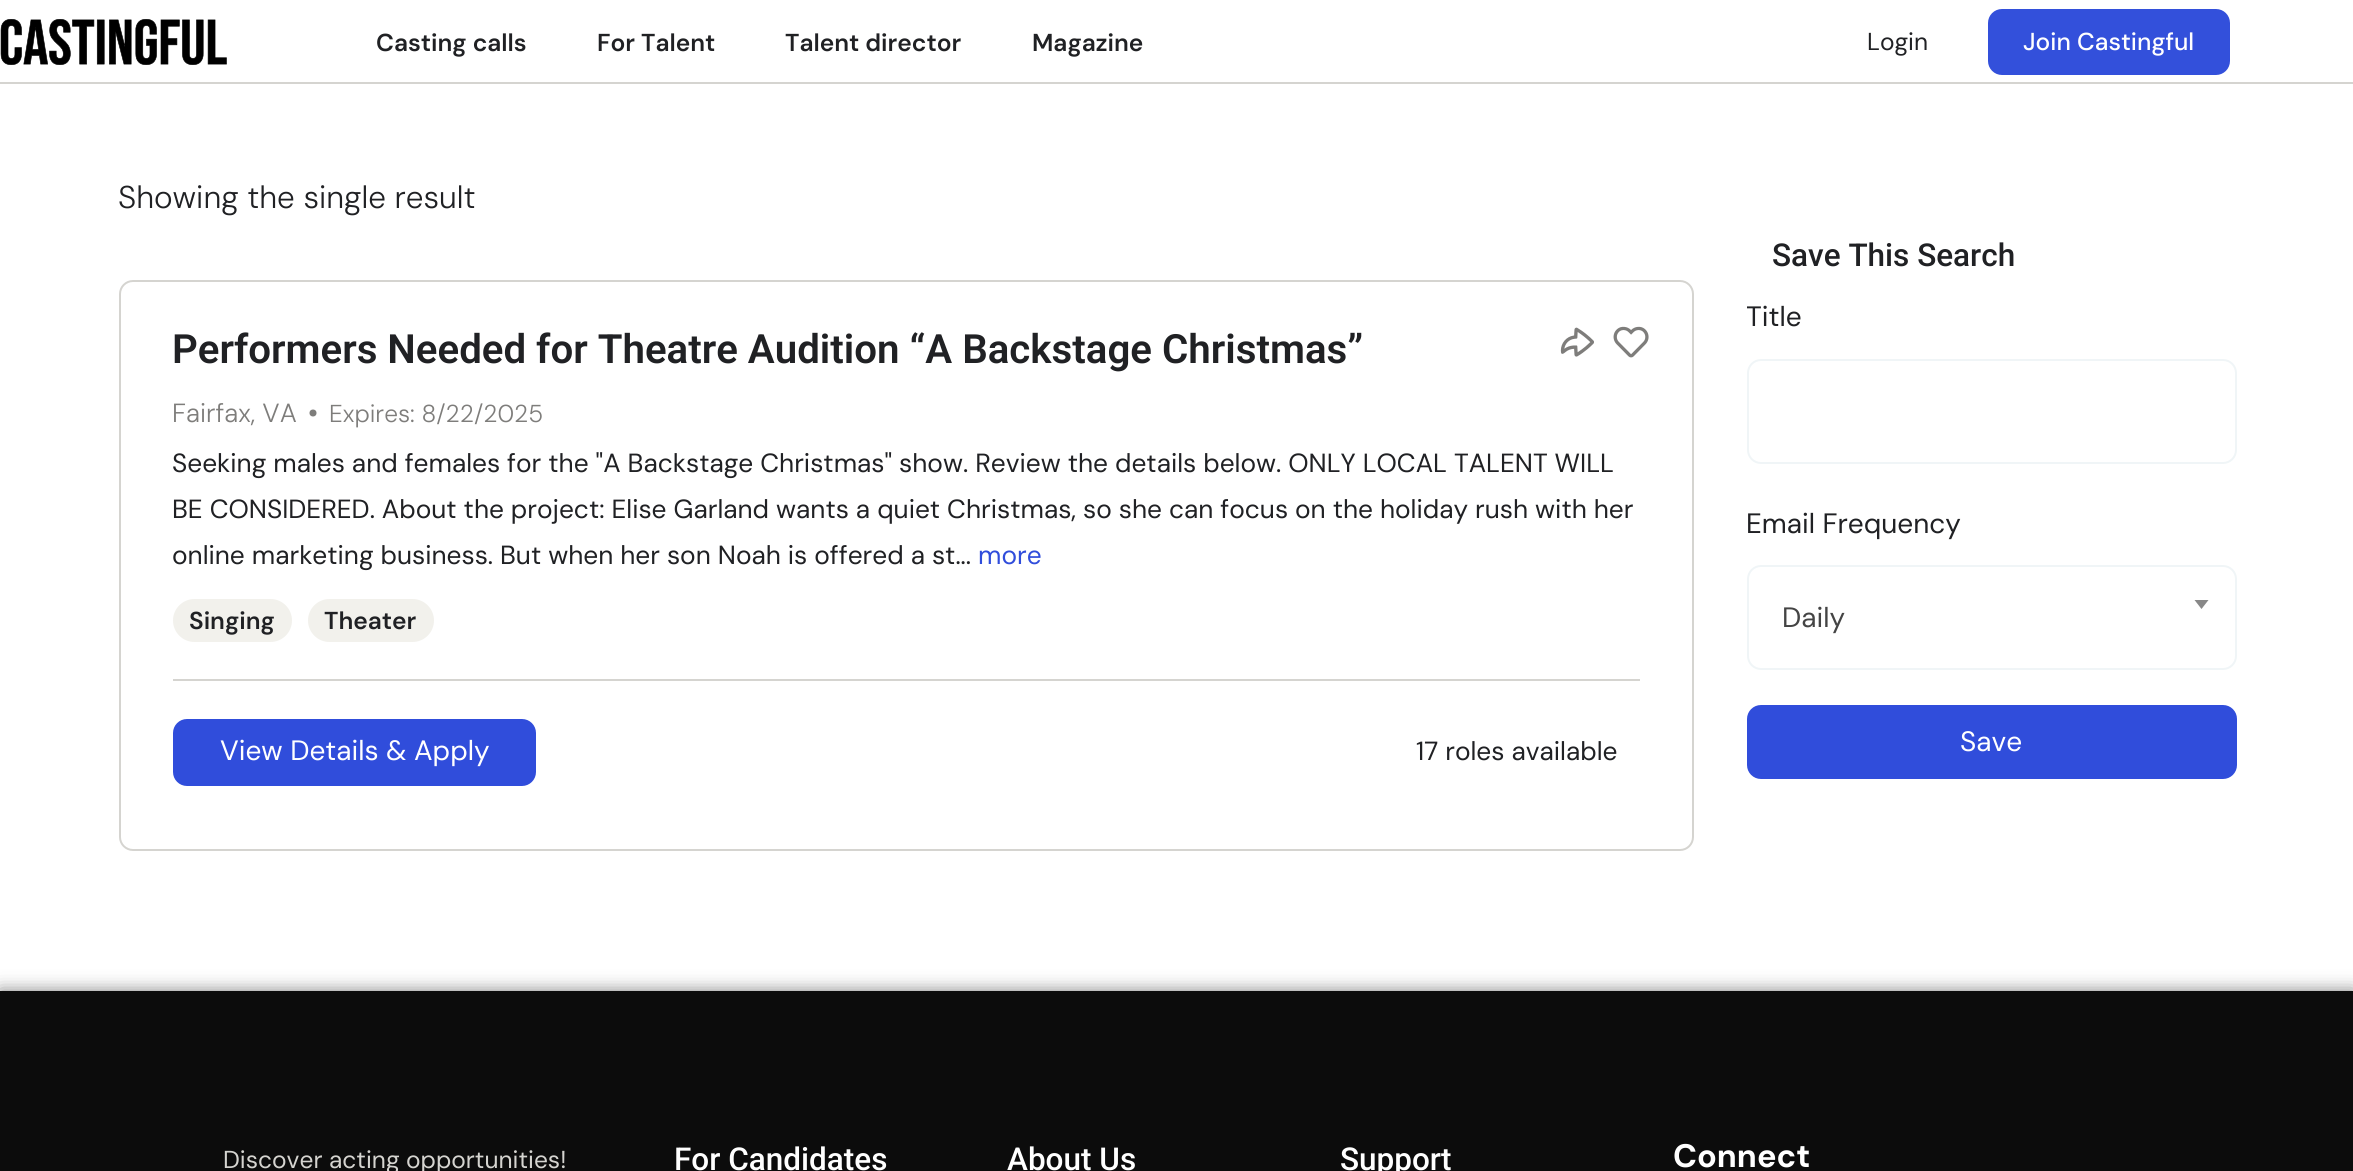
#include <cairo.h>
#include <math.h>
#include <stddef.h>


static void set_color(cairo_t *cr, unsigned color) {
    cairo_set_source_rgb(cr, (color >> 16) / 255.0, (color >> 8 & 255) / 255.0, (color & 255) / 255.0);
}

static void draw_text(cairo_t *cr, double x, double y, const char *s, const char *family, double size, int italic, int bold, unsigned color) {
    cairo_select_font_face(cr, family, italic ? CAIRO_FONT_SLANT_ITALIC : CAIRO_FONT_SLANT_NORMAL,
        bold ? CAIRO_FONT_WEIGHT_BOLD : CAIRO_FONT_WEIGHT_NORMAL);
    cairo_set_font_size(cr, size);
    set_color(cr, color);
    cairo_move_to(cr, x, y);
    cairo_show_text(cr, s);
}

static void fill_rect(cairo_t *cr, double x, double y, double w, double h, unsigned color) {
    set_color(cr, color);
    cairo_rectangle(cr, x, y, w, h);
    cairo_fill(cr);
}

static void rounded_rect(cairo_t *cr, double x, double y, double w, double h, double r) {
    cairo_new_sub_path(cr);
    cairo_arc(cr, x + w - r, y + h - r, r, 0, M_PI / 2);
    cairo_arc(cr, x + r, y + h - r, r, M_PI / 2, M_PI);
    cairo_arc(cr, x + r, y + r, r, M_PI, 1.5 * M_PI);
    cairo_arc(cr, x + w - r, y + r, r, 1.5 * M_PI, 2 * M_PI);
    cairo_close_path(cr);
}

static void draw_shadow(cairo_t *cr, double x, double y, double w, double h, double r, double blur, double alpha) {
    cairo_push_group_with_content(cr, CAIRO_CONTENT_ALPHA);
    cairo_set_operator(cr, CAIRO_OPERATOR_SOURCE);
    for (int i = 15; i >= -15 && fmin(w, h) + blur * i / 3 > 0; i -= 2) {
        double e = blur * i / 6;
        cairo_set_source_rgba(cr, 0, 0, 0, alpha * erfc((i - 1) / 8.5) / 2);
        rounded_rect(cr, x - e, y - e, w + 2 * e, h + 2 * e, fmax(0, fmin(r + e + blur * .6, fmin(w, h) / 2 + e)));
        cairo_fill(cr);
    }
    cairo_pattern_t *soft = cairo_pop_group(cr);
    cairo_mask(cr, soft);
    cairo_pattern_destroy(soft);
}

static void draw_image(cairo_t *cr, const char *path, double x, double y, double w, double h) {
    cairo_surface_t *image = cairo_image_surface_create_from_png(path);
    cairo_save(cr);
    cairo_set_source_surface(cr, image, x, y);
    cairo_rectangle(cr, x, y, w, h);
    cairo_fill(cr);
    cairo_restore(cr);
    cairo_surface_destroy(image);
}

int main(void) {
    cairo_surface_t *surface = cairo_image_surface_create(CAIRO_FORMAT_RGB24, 2353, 1171);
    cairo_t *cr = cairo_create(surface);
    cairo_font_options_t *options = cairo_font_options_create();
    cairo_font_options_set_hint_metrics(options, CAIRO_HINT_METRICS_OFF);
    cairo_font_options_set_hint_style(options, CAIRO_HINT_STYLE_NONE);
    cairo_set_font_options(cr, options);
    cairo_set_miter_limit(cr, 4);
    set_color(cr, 0xFFFFFF);
    cairo_paint(cr);
    fill_rect(cr, 0, 82, 2353, 2, 0xD5D4D0);
    draw_image(cr, "assets/img1.png", 0, 19, 227, 46);
    draw_text(cr, 376, 51, "Casting calls", "DM Sans SemiBold", 24.5, 0, 0, 0x202124);
    draw_text(cr, 597, 51, "For Talent", "DM Sans SemiBold", 24.5, 0, 0, 0x202124);
    draw_text(cr, 785, 51, "Talent director", "DM Sans SemiBold", 24.5, 0, 0, 0x202124);
    draw_text(cr, 1032, 51, "Magazine", "DM Sans SemiBold", 24.5, 0, 0, 0x202124);
    draw_text(cr, 1867, 50, "Login", "DM Sans", 24.5, 0, 0, 0x202124);
    set_color(cr, 0x3350DB);
    rounded_rect(cr, 1988, 9, 242, 66, 14);
    cairo_fill(cr);
    draw_text(cr, 2023, 50, "Join Castingful", "DM Sans Medium", 24.5, 0, 0, 0xFFFFFF);
    draw_text(cr, 118, 208, "Showing the single result", "DM Sans Light", 31.5, 0, 0, 0x202124);
    rounded_rect(cr, 120, 281, 1573, 569, 13);
    set_color(cr, 0xD5D4D0);
    cairo_stroke(cr);
    draw_image(cr, "assets/img2.png", 1560, 327, 34, 30);
    draw_image(cr, "assets/img3.png", 1613, 326, 36, 32);
    draw_text(cr, 172, 363, "Performers Needed for Theatre Audition “A Backstage Christmas”", "Roboto SemiBold", 40.25, 0, 0, 0x202124);
    draw_text(cr, 172, 422, "Fairfax, VA", "DM Sans Light", 26.25, 0, 0, 0x7E7D7B);
    cairo_new_path(cr);
    cairo_arc(cr, 313, 413, 3.5, 0, 2 * M_PI);
    cairo_fill(cr);
    draw_text(cr, 329, 422, "Expires: 8/22/2025", "DM Sans Light", 24.5, 0, 0, 0x7E7D7B);
    draw_text(cr, 172, 472, "Seeking males and females for the \"A Backstage Christmas\" show. Review the details below. ONLY LOCAL TALENT WILL", "DM Sans", 26.25, 0, 0, 0x202124);
    draw_text(cr, 172, 518, "BE CONSIDERED. About the project: Elise Garland wants a quiet Christmas, so she can focus on the holiday rush with her", "DM Sans", 26.25, 0, 0, 0x202124);
    draw_text(cr, 172, 564, "online marketing business. But when her son Noah is offered a st...", "DM Sans", 26.25, 0, 0, 0x202124);
    draw_text(cr, 978, 564, "more", "DM Sans", 26.25, 0, 0, 0x304DDB);
    set_color(cr, 0xF2F1EC);
    rounded_rect(cr, 173, 599, 119, 43, 21.5);
    cairo_fill(cr);
    draw_text(cr, 189, 629, "Singing", "DM Sans SemiBold", 24.5, 0, 0, 0x202124);
    set_color(cr, 0xF2F1EC);
    rounded_rect(cr, 308, 599, 126, 43, 21.5);
    cairo_fill(cr);
    draw_text(cr, 324, 629, "Theater", "DM Sans SemiBold", 24.5, 0, 0, 0x202124);
    fill_rect(cr, 173, 679, 1467, 2, 0xD5D4D0);
    set_color(cr, 0x304DDB);
    rounded_rect(cr, 173, 719, 363, 67, 14);
    cairo_fill(cr);
    draw_text(cr, 220, 760, "View Details & Apply", "DM Sans", 28, 0, 0, 0xFFFFFF);
    draw_text(cr, 1416, 760, "17 roles available", "DM Sans", 26.25, 0, 0, 0x202124);
    draw_text(cr, 1772, 266, "Save This Search", "Roboto Medium", 31.5, 0, 0, 0x202124);
    cairo_save(cr);
    rounded_rect(cr, 1747, 172, 490, 659, 14);
    cairo_clip(cr);
    draw_text(cr, 1746, 326, "Title", "DM Sans", 28, 0, 0, 0x202124);
    cairo_restore(cr);
    rounded_rect(cr, 1748, 360, 488, 103, 13);
    set_color(cr, 0xF0F5F7);
    cairo_stroke(cr);
    draw_text(cr, 1746, 533, "Email Frequency", "DM Sans", 28, 0, 0, 0x202124);
    rounded_rect(cr, 1748, 566, 488, 103, 13);
    set_color(cr, 0xF0F5F7);
    cairo_stroke(cr);
    set_color(cr, 0x888888);
    cairo_new_path(cr);
    cairo_move_to(cr, 2194.5, 600);
    cairo_line_to(cr, 2208.5, 600);
    cairo_line_to(cr, 2201.5, 609);
    cairo_close_path(cr);
    cairo_fill(cr);
    draw_text(cr, 1782, 627, "Daily", "DM Sans", 28, 0, 0, 0x444444);
    set_color(cr, 0x304DDB);
    rounded_rect(cr, 1749, 707, 486, 70, 12);
    cairo_fill_preserve(cr);
    cairo_set_line_width(cr, 4);
    cairo_stroke(cr);
    draw_text(cr, 1960, 751, "Save", "DM Sans", 28, 0, 0, 0xFFFFFF);
    set_color(cr, 0x000000);
    draw_shadow(cr, 0, 991, 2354, 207, 0, 9, 0.5);
    fill_rect(cr, 0, 991, 2353, 180, 0x0C0C0C);
    draw_text(cr, 223, 1168, "Discover acting opportunities!", "DM Sans", 24.5, 0, 0, 0xD5D4D0);
    draw_text(cr, 674, 1170, "For Candidates", "Roboto Medium", 31.5, 0, 0, 0xFFFFFF);
    draw_text(cr, 1007, 1170, "About Us", "Roboto Medium", 31.5, 0, 0, 0xFFFFFF);
    draw_text(cr, 1340, 1170, "Support", "Roboto Medium", 31.5, 0, 0, 0xFFFFFF);
    draw_text(cr, 1673, 1167, "Connect", "DM Sans", 32.5, 0, 1, 0xFFFFFF);
    cairo_surface_write_to_png(surface, "output.png");
    cairo_font_options_destroy(options);
    cairo_destroy(cr);
    cairo_surface_destroy(surface);
    return 0;
}
